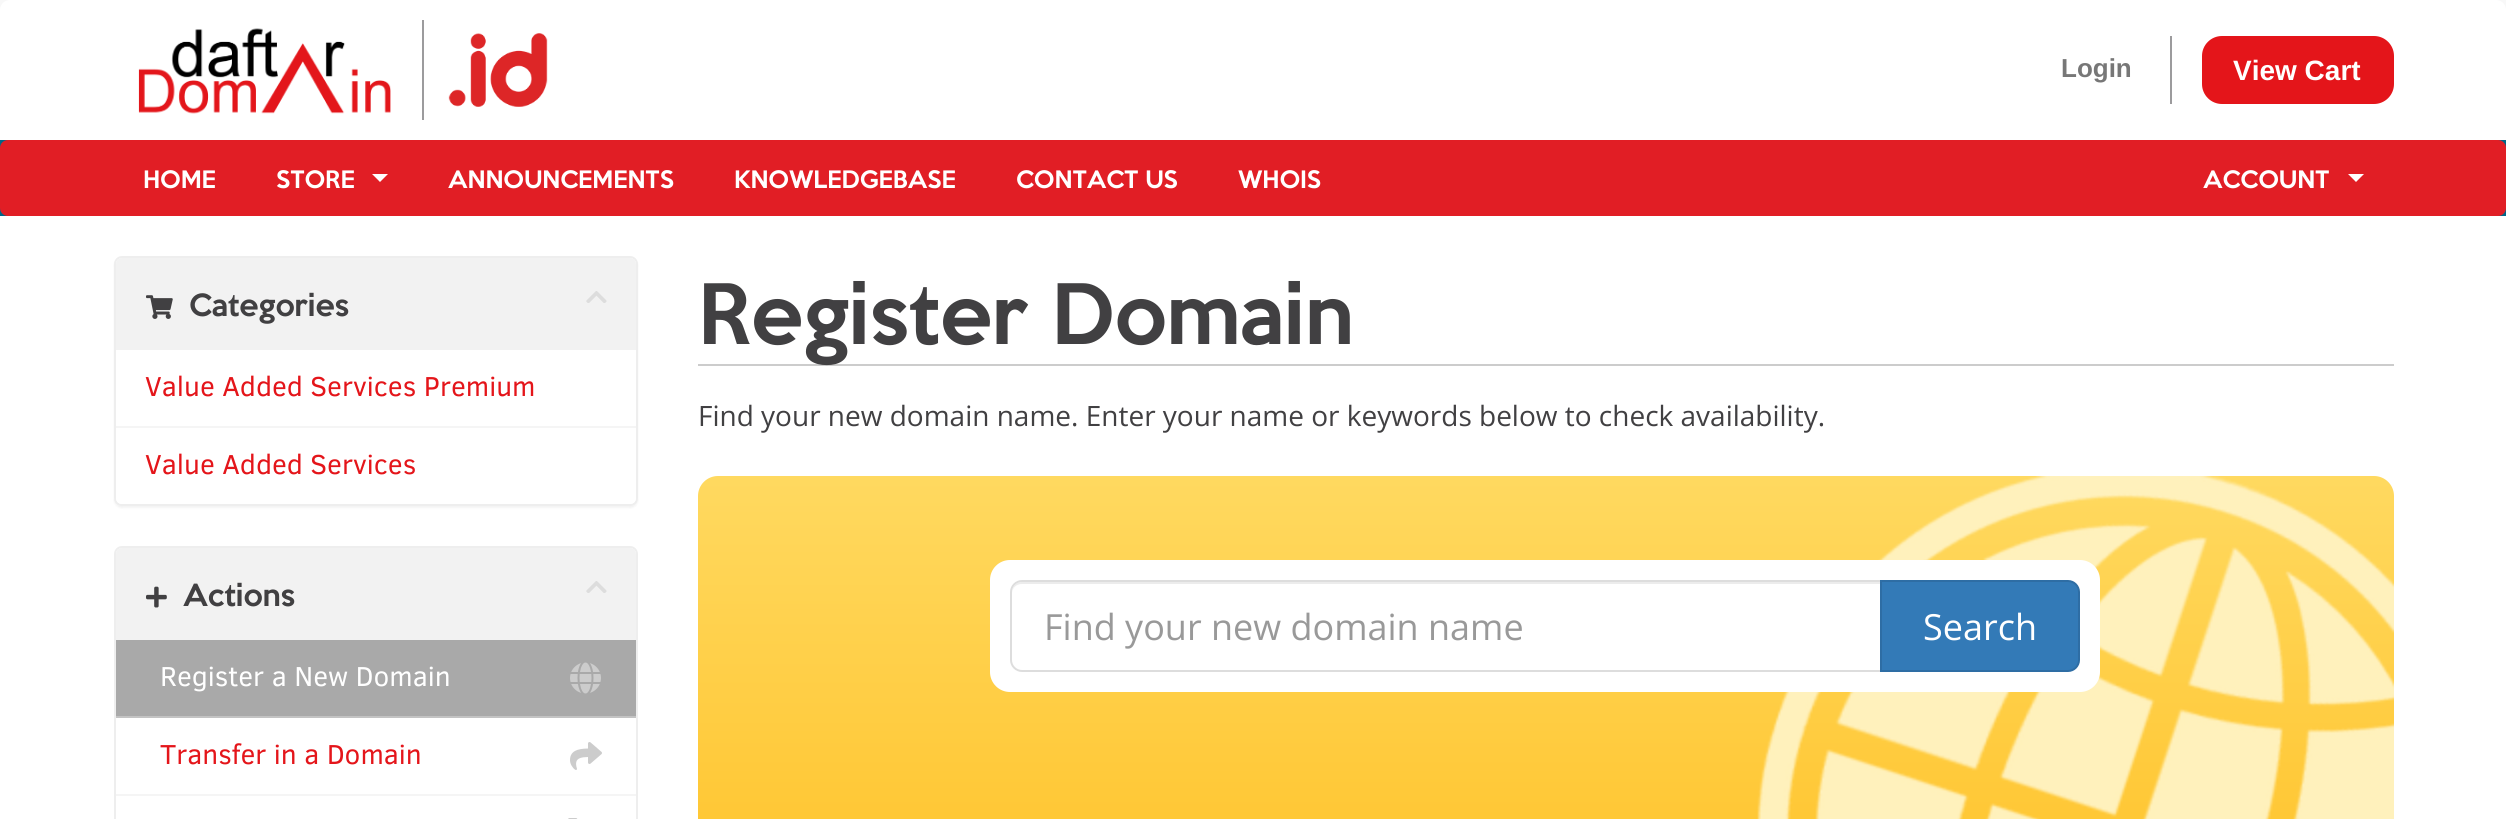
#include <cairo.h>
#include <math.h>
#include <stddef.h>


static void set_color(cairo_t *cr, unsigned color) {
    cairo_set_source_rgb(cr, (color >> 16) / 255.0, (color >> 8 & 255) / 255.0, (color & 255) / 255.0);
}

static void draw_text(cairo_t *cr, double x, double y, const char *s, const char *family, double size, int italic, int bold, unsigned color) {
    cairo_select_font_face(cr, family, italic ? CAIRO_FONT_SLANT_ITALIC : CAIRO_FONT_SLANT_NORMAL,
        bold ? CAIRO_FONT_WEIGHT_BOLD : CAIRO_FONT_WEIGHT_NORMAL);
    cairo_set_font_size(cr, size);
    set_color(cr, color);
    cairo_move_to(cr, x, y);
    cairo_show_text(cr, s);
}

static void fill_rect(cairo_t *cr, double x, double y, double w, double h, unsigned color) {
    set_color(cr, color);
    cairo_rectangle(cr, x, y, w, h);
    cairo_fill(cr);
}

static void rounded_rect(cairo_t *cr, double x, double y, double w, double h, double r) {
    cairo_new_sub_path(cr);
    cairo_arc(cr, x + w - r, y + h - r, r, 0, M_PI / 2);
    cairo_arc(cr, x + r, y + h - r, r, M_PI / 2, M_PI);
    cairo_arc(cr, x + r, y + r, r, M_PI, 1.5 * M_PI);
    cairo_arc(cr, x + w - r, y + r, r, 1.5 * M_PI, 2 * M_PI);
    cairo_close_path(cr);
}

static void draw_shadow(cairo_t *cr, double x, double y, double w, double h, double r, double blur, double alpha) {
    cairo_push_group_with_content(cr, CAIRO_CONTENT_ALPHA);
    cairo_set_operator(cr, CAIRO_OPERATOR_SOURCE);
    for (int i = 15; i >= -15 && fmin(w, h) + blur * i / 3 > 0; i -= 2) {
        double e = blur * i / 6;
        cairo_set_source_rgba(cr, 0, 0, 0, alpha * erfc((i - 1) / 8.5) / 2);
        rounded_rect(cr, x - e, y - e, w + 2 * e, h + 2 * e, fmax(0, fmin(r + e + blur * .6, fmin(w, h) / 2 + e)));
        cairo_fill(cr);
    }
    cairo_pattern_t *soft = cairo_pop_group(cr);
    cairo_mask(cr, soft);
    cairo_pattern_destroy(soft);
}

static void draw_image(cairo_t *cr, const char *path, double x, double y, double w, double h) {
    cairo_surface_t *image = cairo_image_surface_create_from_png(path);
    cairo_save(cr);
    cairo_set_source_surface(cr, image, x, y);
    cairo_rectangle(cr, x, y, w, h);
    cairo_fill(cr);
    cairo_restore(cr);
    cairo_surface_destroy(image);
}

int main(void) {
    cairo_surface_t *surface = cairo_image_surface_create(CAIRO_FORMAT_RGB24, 2506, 819);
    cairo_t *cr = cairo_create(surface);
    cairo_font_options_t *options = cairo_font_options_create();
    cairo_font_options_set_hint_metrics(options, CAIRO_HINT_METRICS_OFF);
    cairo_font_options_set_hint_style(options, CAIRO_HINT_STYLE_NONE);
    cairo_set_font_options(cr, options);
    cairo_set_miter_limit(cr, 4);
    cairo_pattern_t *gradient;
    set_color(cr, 0xF8F8F8);
    cairo_paint(cr);
    set_color(cr, 0xFFFFFF);
    cairo_new_path(cr);
    cairo_move_to(cr, 10, 0);
    cairo_line_to(cr, 2496, 0);
    cairo_curve_to(cr, 2501.5, 0, 2506, 4.5, 2506, 10);
    cairo_line_to(cr, 2506, 140);
    cairo_line_to(cr, 0, 140);
    cairo_line_to(cr, 0, 10);
    cairo_curve_to(cr, 0, 4.5, 4.5, 0, 10, 0);
    cairo_close_path(cr);
    cairo_fill(cr);
    draw_image(cr, "assets/img1.png", 138, 28, 253, 86);
    fill_rect(cr, 422, 20, 2, 100, 0x9C9B9D);
    draw_image(cr, "assets/img2.png", 448, 33, 100, 74);
    draw_text(cr, 2061, 77, "Login", "Liberation Sans", 26, 0, 1, 0x777777);
    fill_rect(cr, 2170, 36, 2, 68, 0x9C9B9D);
    set_color(cr, 0xE4151A);
    rounded_rect(cr, 2202, 36, 192, 68, 20);
    cairo_fill(cr);
    draw_text(cr, 2233, 80, "View Cart", "Liberation Sans", 28, 0, 1, 0xFFFFFF);
    fill_rect(cr, 0, 140, 2506, 76, 0x006687);
    set_color(cr, 0xE11E25);
    rounded_rect(cr, 0, 140, 2506, 76, 8);
    cairo_fill(cr);
    draw_text(cr, 143, 188, "HOME", "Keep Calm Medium", 22, 0, 0, 0xFFFFFF);
    draw_text(cr, 276, 188, "STORE", "Keep Calm Medium", 22, 0, 0, 0xFFFFFF);
    cairo_new_path(cr);
    cairo_move_to(cr, 372, 174);
    cairo_line_to(cr, 388, 174);
    cairo_line_to(cr, 380, 182);
    cairo_close_path(cr);
    cairo_fill(cr);
    draw_text(cr, 448, 188, "ANNOUNCEMENTS", "Keep Calm Medium", 22, 0, 0, 0xFFFFFF);
    draw_text(cr, 734, 188, "KNOWLEDGEBASE", "Keep Calm Medium", 22, 0, 0, 0xFFFFFF);
    draw_text(cr, 1016, 188, "CONTACT US", "Keep Calm Medium", 22, 0, 0, 0xFFFFFF);
    draw_text(cr, 1238, 188, "WHOIS", "Keep Calm Medium", 22, 0, 0, 0xFFFFFF);
    draw_text(cr, 2203, 188, "ACCOUNT", "Keep Calm Medium", 22, 0, 0, 0xFFFFFF);
    cairo_new_path(cr);
    cairo_move_to(cr, 2348, 174);
    cairo_line_to(cr, 2364, 174);
    cairo_line_to(cr, 2356, 182);
    cairo_close_path(cr);
    cairo_fill(cr);
    fill_rect(cr, 0, 216, 2506, 603, 0xFFFFFF);
    set_color(cr, 0x000000);
    draw_shadow(cr, 114, 258, 524, 250, 8, 1, 0.05);
    set_color(cr, 0xFFFFFF);
    rounded_rect(cr, 115, 257, 522, 248, 7);
    cairo_fill_preserve(cr);
    set_color(cr, 0xEEEEEE);
    cairo_stroke(cr);
    set_color(cr, 0xF2F2F2);
    cairo_new_path(cr);
    cairo_move_to(cr, 122, 258);
    cairo_line_to(cr, 630, 258);
    cairo_curve_to(cr, 633.5, 258, 636, 260.5, 636, 264);
    cairo_line_to(cr, 636, 350);
    cairo_line_to(cr, 116, 350);
    cairo_line_to(cr, 116, 264);
    cairo_curve_to(cr, 116, 260.5, 118.5, 258, 122, 258);
    cairo_close_path(cr);
    cairo_fill(cr);
    draw_image(cr, "assets/img3.png", 146, 295, 27, 24);
    draw_text(cr, 189, 316, "Categories", "Keep Calm Medium", 28, 0, 0, 0x414042);
    draw_image(cr, "assets/img4.png", 586, 291, 21, 12);
    draw_text(cr, 145, 396, "Value Added Services Premium", "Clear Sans", 28, 0, 0, 0xE4151A);
    set_color(cr, 0xFFFFFF);
    cairo_new_path(cr);
    cairo_move_to(cr, 116, 426);
    cairo_line_to(cr, 636, 426);
    cairo_line_to(cr, 636, 498);
    cairo_curve_to(cr, 636, 501.5, 633.5, 504, 630, 504);
    cairo_line_to(cr, 122, 504);
    cairo_curve_to(cr, 118.5, 504, 116, 501.5, 116, 498);
    cairo_close_path(cr);
    cairo_fill(cr);
    fill_rect(cr, 116, 426, 520, 2, 0xF5F5F5);
    draw_text(cr, 145, 474, "Value Added Services", "Clear Sans", 28, 0, 0, 0xE4151A);
    rounded_rect(cr, 115, 547, 522, 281, 7);
    set_color(cr, 0xEEEEEE);
    cairo_stroke(cr);
    set_color(cr, 0xF2F2F2);
    cairo_new_path(cr);
    cairo_move_to(cr, 122, 548);
    cairo_line_to(cr, 630, 548);
    cairo_curve_to(cr, 633.5, 548, 636, 550.5, 636, 554);
    cairo_line_to(cr, 636, 640);
    cairo_line_to(cr, 116, 640);
    cairo_line_to(cr, 116, 554);
    cairo_curve_to(cr, 116, 550.5, 118.5, 548, 122, 548);
    cairo_close_path(cr);
    cairo_fill(cr);
    draw_image(cr, "assets/img5.png", 146, 586, 21, 22);
    draw_text(cr, 183, 606, "Actions", "Keep Calm Medium", 28, 0, 0, 0x414042);
    draw_image(cr, "assets/img4.png", 586, 581, 21, 12);
    fill_rect(cr, 116, 640, 520, 76, 0xA9A9A9);
    fill_rect(cr, 116, 716, 520, 2, 0xC3C3C3);
    draw_text(cr, 160, 686, "Register a New Domain", "Clear Sans", 28, 0, 0, 0xFFFFFF);
    draw_image(cr, "assets/img6.png", 570, 662, 31, 32);
    draw_text(cr, 160, 764, "Transfer in a Domain", "Clear Sans", 28, 0, 0, 0xE4151A);
    draw_image(cr, "assets/img7.png", 570, 742, 32, 28);
    fill_rect(cr, 116, 794, 520, 2, 0xF5F5F5);
    draw_image(cr, "assets/img8.png", 568, 818, 10, 1);
    fill_rect(cr, 698, 364, 1696, 2, 0xCCCCCC);
    draw_text(cr, 698, 344, "Register Domain", "Keep Calm Medium", 76, 0, 0, 0x414042);
    draw_text(cr, 698, 426, "Find your new domain name. Enter your name or keywords below to check availability.", "Open Sans", 28, 0, 0, 0x414042);
    gradient = cairo_pattern_create_linear(1546, 476, 1546, 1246);
    cairo_pattern_add_color_stop_rgba(gradient, 0, 1, 0.851, 0.376, 1);
    cairo_pattern_add_color_stop_rgba(gradient, 1, 1, 0.698, 0.004, 1);
    cairo_set_source(cr, gradient);
    cairo_pattern_destroy(gradient);
    rounded_rect(cr, 698, 476, 1696, 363, 20);
    cairo_fill(cr);
    draw_image(cr, "assets/img9.png", 1757, 476, 637, 343);
    set_color(cr, 0xFFFFFF);
    rounded_rect(cr, 990, 560, 1110, 132, 20);
    cairo_fill(cr);
    set_color(cr, 0xECECEC);
    cairo_new_path(cr);
    cairo_move_to(cr, 1022, 584);
    cairo_line_to(cr, 1880, 584);
    cairo_line_to(cr, 1880, 582);
    cairo_line_to(cr, 1022, 582);
    cairo_curve_to(cr, 1015, 582, 1012, 588, 1012, 594);
    cairo_curve_to(cr, 1012, 588, 1016, 584, 1022, 584);
    cairo_close_path(cr);
    cairo_fill(cr);
    cairo_new_path(cr);
    cairo_move_to(cr, 1022, 581);
    cairo_line_to(cr, 1881, 581);
    cairo_line_to(cr, 1881, 671);
    cairo_line_to(cr, 1022, 671);
    cairo_curve_to(cr, 1016, 671, 1011, 666, 1011, 660);
    cairo_line_to(cr, 1011, 592);
    cairo_curve_to(cr, 1011, 586, 1016, 581, 1022, 581);
    cairo_close_path(cr);
    set_color(cr, 0xDDDDDD);
    cairo_stroke(cr);
    draw_text(cr, 1044, 640, "Find your new domain name", "Open Sans", 36, 0, 0, 0x999999);
    set_color(cr, 0x337AB7);
    cairo_new_path(cr);
    cairo_move_to(cr, 1881, 581);
    cairo_line_to(cr, 2068, 581);
    cairo_curve_to(cr, 2074, 581, 2079, 586, 2079, 592);
    cairo_line_to(cr, 2079, 660);
    cairo_curve_to(cr, 2079, 666, 2074, 671, 2068, 671);
    cairo_line_to(cr, 1881, 671);
    cairo_close_path(cr);
    cairo_fill_preserve(cr);
    set_color(cr, 0x2E6DA4);
    cairo_stroke(cr);
    draw_text(cr, 1923, 640, "Search", "Open Sans", 36, 0, 0, 0xFFFFFF);
    cairo_surface_write_to_png(surface, "output.png");
    cairo_font_options_destroy(options);
    cairo_destroy(cr);
    cairo_surface_destroy(surface);
    return 0;
}
